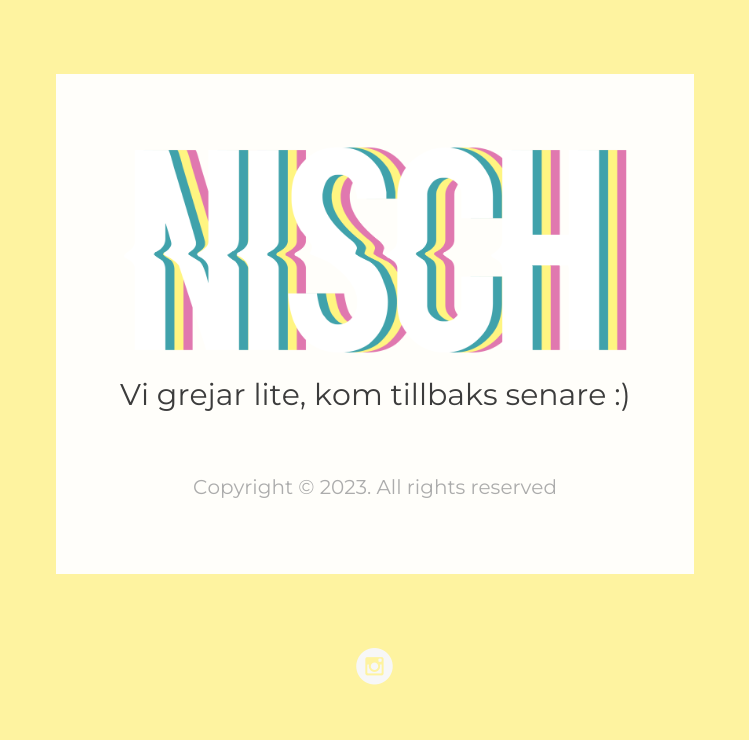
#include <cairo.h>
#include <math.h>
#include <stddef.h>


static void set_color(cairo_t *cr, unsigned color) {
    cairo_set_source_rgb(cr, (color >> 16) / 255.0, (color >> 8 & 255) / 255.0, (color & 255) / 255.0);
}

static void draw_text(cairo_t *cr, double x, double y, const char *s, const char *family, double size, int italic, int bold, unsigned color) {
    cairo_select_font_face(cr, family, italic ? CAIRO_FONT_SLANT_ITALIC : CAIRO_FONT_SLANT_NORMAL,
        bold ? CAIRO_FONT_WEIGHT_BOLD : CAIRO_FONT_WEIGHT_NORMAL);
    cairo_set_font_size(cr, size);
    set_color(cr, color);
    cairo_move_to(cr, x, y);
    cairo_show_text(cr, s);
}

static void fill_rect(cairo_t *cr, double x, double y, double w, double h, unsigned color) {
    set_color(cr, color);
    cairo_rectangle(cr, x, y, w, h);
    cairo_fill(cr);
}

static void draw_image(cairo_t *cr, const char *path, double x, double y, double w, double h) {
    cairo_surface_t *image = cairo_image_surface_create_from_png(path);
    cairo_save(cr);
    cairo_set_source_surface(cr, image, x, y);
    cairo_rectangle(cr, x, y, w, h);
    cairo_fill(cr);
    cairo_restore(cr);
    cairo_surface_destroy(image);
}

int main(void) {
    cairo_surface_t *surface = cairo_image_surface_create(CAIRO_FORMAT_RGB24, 749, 740);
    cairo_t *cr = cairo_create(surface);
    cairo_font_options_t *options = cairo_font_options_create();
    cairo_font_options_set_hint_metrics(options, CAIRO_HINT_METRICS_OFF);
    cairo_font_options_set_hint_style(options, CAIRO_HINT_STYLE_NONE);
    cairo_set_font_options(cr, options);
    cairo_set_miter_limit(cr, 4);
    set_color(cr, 0xFEF3A0);
    cairo_paint(cr);
    fill_rect(cr, 56, 74, 638, 500, 0xFFFEFA);
    draw_image(cr, "assets/img1.png", 124, 147, 503, 206);
    draw_text(cr, 120, 405, "Vi grejar lite, kom tillbaks senare :)", "Montserrat", 30, 0, 0, 0x3C3C3C);
    draw_text(cr, 193, 494, "Copyright © 2023. All rights reserved", "Montserrat", 20, 0, 0, 0xACACAC);
    draw_image(cr, "assets/img2.png", 356, 648, 37, 37);
    cairo_surface_write_to_png(surface, "output.png");
    cairo_font_options_destroy(options);
    cairo_destroy(cr);
    cairo_surface_destroy(surface);
    return 0;
}
